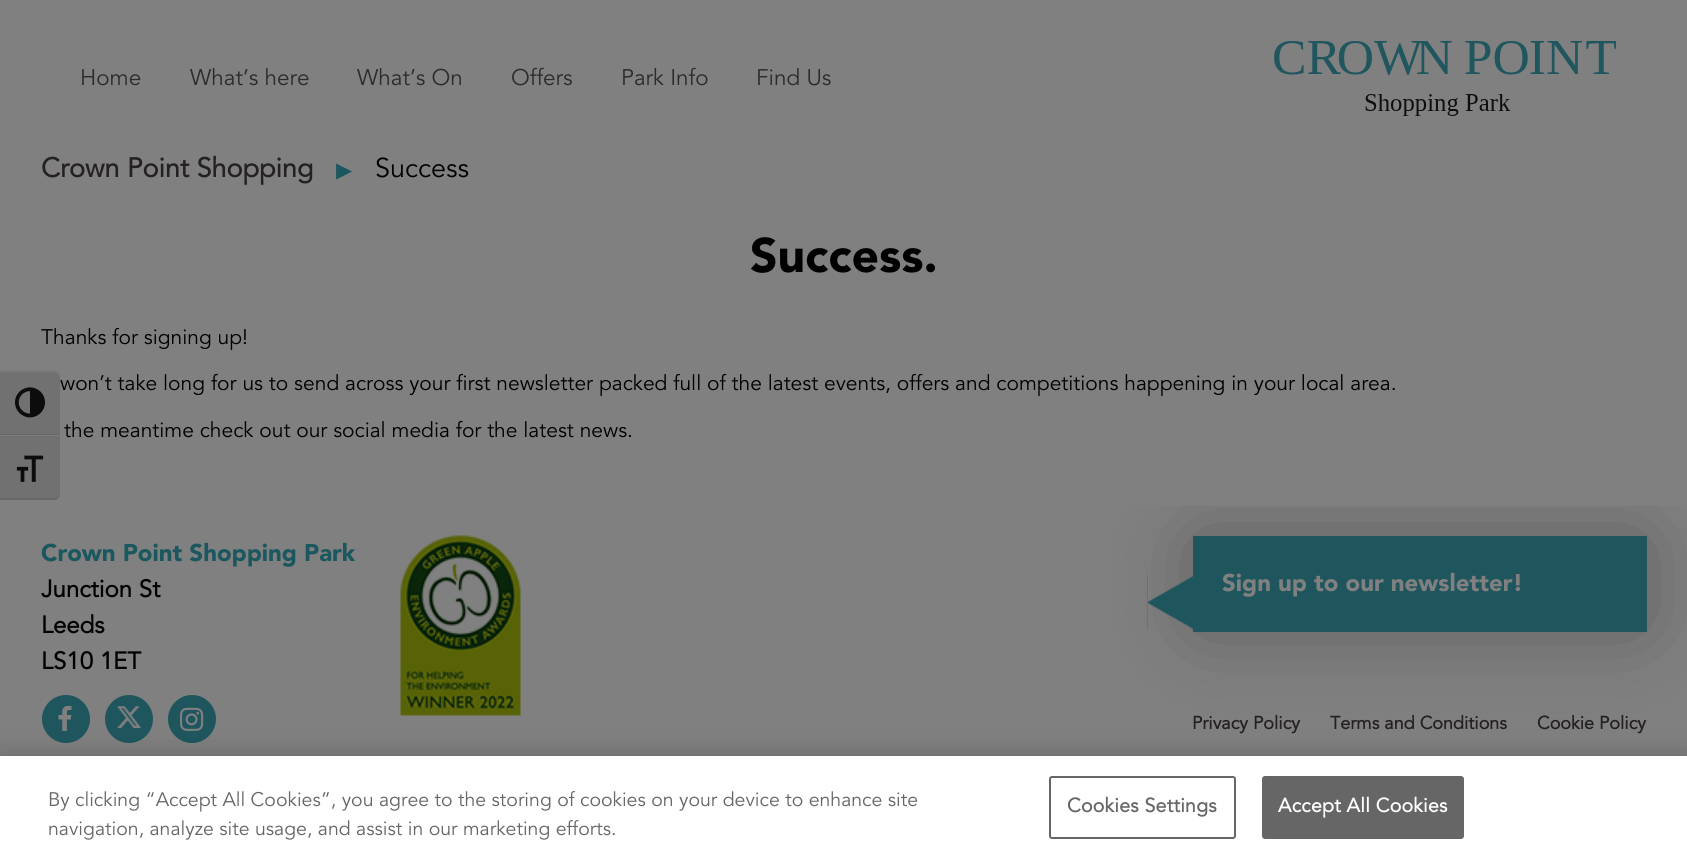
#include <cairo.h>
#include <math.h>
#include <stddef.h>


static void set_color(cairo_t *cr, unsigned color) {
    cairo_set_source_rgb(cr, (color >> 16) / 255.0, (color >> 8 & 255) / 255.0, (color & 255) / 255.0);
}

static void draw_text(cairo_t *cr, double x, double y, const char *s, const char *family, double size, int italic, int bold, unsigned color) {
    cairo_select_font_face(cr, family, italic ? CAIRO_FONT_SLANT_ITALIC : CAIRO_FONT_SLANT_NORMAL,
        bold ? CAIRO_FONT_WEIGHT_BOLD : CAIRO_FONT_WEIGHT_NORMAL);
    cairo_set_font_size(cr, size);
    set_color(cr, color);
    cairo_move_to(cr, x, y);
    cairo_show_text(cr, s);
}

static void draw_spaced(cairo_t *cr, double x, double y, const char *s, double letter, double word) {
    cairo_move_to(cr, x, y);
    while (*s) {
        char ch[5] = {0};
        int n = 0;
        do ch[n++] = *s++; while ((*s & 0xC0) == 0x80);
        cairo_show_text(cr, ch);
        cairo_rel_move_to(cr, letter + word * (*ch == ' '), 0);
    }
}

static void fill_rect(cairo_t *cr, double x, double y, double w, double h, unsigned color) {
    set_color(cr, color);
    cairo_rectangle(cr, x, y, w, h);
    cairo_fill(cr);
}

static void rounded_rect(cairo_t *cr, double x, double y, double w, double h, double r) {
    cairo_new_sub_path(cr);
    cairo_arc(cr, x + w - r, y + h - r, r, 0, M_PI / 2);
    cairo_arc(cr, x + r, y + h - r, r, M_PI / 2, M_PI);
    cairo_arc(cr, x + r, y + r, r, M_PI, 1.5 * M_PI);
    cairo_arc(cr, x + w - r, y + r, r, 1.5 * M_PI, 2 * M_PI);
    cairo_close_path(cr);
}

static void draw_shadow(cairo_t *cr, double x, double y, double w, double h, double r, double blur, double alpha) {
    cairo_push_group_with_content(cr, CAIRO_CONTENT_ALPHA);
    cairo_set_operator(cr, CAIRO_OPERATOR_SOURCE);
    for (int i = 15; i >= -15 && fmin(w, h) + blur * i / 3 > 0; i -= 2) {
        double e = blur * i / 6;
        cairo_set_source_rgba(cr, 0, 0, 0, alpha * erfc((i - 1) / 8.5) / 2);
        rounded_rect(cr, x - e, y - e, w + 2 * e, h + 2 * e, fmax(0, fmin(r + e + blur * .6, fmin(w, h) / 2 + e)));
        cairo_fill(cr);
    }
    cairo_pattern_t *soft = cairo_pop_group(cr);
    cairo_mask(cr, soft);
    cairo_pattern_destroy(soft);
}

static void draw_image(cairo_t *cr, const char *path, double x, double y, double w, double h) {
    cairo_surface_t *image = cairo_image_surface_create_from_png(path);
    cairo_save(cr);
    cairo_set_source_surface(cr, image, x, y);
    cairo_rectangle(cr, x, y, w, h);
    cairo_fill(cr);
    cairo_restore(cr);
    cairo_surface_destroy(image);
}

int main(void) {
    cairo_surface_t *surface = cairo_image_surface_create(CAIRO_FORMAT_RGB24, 1687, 862);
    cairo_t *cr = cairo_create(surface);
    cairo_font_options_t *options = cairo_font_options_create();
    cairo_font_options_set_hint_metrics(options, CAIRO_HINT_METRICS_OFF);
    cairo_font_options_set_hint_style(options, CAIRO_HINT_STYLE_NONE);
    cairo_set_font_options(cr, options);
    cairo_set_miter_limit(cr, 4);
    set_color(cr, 0x808080);
    cairo_paint(cr);
    draw_text(cr, 60, 390, "won’t take long for us to send across your first newsletter packed full of the latest events, offers and competitions happening in your local area.", "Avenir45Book", 21, 0, 0, 0x000000);
    set_color(cr, 0x717171);
    cairo_new_path(cr);
    cairo_move_to(cr, 0, 371);
    cairo_line_to(cr, 54, 371);
    cairo_curve_to(cr, 57.5, 371, 60, 373.5, 60, 377);
    cairo_line_to(cr, 60, 435);
    cairo_line_to(cr, 0, 435);
    cairo_close_path(cr);
    cairo_fill(cr);
    set_color(cr, 0x7B7B7B);
    cairo_new_path(cr);
    cairo_move_to(cr, 0, 372);
    cairo_line_to(cr, 54, 372);
    cairo_curve_to(cr, 57, 372, 60, 374, 60, 376);
    cairo_curve_to(cr, 60, 374, 58, 371, 56, 370);
    cairo_line_to(cr, 0, 370);
    cairo_close_path(cr);
    cairo_fill(cr);
    fill_rect(cr, 0, 434, 60, 1, 0x696969);
    draw_image(cr, "assets/img1.png", 15, 387, 30, 31);
    set_color(cr, 0x717171);
    cairo_new_path(cr);
    cairo_move_to(cr, 0, 435);
    cairo_line_to(cr, 60, 435);
    cairo_line_to(cr, 60, 494);
    cairo_curve_to(cr, 60, 497.5, 57.5, 500, 54, 500);
    cairo_line_to(cr, 0, 500);
    cairo_close_path(cr);
    cairo_fill(cr);
    fill_rect(cr, 0, 435, 60, 1, 0x7B7B7B);
    set_color(cr, 0x696969);
    cairo_new_path(cr);
    cairo_move_to(cr, 56, 500);
    cairo_curve_to(cr, 58, 499, 60, 496, 60, 494);
    cairo_curve_to(cr, 60, 496, 57, 498, 54, 498);
    cairo_line_to(cr, 0, 498);
    cairo_line_to(cr, 0, 500);
    cairo_close_path(cr);
    cairo_fill(cr);
    draw_image(cr, "assets/img2.png", 16, 455, 28, 27);
    draw_text(cr, 80, 85, "Home", "Avenir45Book", 22.5, 0, 0, 0x2C2C2B);
    draw_text(cr, 190, 85, "What’s here", "Avenir45Book", 22.5, 0, 0, 0x2C2C2B);
    draw_text(cr, 357, 85, "What’s On", "Avenir45Book", 22.5, 0, 0, 0x2C2C2B);
    draw_text(cr, 511, 85, "Offers", "Avenir45Book", 22.5, 0, 0, 0x2C2C2B);
    draw_text(cr, 621, 85, "Park Info", "Avenir45Book", 22.5, 0, 0, 0x2C2C2B);
    draw_text(cr, 756, 85, "Find Us", "Avenir45Book", 22.5, 0, 0, 0x2C2C2B);
    draw_image(cr, "assets/img3.png", 1274, 41, 342, 75);
    draw_text(cr, 41, 177, "Crown Point Shopping", "Avenir45Book", 27, 0, 1, 0x252021);
    draw_text(cr, 336, 177, "▶", "DejaVu Sans", 21, 0, 0, 0x1B575E);
    draw_text(cr, 375, 177, "Success", "Avenir45Book", 27, 0, 0, 0x000000);
    draw_text(cr, 750, 272, "Success.", "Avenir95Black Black", 48, 0, 0, 0x000000);
    draw_text(cr, 41, 344, "Thanks for signing up!", "Avenir45Book", 21, 0, 0, 0x000000);
    draw_text(cr, 64, 437, "the meantime check out our social media for the latest news.", "Avenir45Book", 21, 0, 0, 0x000000);
    draw_text(cr, 41, 561, "Crown Point Shopping Park", "Avenir95Black Black", 24, 0, 0, 0x1B575E);
    draw_text(cr, 41, 597, "Junction St", "Avenir45Book", 24, 0, 1, 0x000000);
    draw_text(cr, 41, 633, "Leeds", "Avenir45Book", 24, 0, 1, 0x000000);
    draw_text(cr, 41, 669, "LS10 1ET", "Avenir45Book", 24, 0, 1, 0x000000);
    set_color(cr, 0x1F565E);
    cairo_new_path(cr);
    cairo_arc(cr, 66, 719, 24, 0, 2 * M_PI);
    cairo_fill(cr);
    draw_image(cr, "assets/img4.png", 58, 705, 14, 26);
    cairo_arc(cr, 129, 719, 24, 0, 2 * M_PI);
    cairo_fill(cr);
    draw_image(cr, "assets/img5.png", 117, 706, 25, 22);
    cairo_arc(cr, 192, 719, 24, 0, 2 * M_PI);
    cairo_fill(cr);
    draw_image(cr, "assets/img6.png", 180, 707, 24, 24);
    draw_image(cr, "assets/img7.png", 400, 535, 121, 181);
    cairo_save(cr);
    cairo_rectangle(cr, 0, 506, 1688, 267);
    cairo_clip(cr);
    set_color(cr, 0x000000);
    draw_shadow(cr, 1200, 543, 440, 81, 0, 42, 0.29);
    cairo_restore(cr);
    fill_rect(cr, 1193, 536, 454, 96, 0x1F565E);
    draw_image(cr, "assets/img8.png", 1147, 574, 46, 57);
    draw_text(cr, 1222, 591, "Sign up to our newsletter!", "Avenir95Black Black", 24, 0, 0, 0x808080);
    draw_text(cr, 1192, 729, "Privacy Policy", "Avenir45Book", 18, 0, 1, 0x252021);
    draw_text(cr, 1330, 729, "Terms and Conditions", "Avenir45Book", 18, 0, 1, 0x252021);
    draw_text(cr, 1537, 729, "Cookie Policy", "Avenir45Book", 18, 0, 1, 0x252021);
    set_color(cr, 0x000000);
    draw_shadow(cr, 0, 756, 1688, 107, 0, 13.5, 0.2);
    fill_rect(cr, 0, 756, 1687, 106, 0xFFFFFF);
    draw_text(cr, 48, 806, "By clicking “Accept All Cookies”, you agree to the storing of cookies on your device to enhance site", "Avenir45Book", 19.5, 0, 0, 0x666666);
    draw_text(cr, 48, 835, "navigation, analyze site usage, and assist in our marketing efforts.", "Avenir45Book", 19.5, 0, 0, 0x666666);
    rounded_rect(cr, 1050, 777, 185, 61, 2);
    cairo_stroke(cr);
    cairo_select_font_face(cr, "Avenir45Book", CAIRO_FONT_SLANT_NORMAL, CAIRO_FONT_WEIGHT_BOLD);
    draw_spaced(cr, 1067, 812, "Cookies Settings", 0.25, 0);
    rounded_rect(cr, 1263, 777, 200, 61, 2);
    cairo_fill_preserve(cr);
    cairo_stroke(cr);
    set_color(cr, 0xFFFFFF);
    draw_spaced(cr, 1278, 812, "Accept All Cookies", 0.25, 0);
    cairo_surface_write_to_png(surface, "output.png");
    cairo_font_options_destroy(options);
    cairo_destroy(cr);
    cairo_surface_destroy(surface);
    return 0;
}
